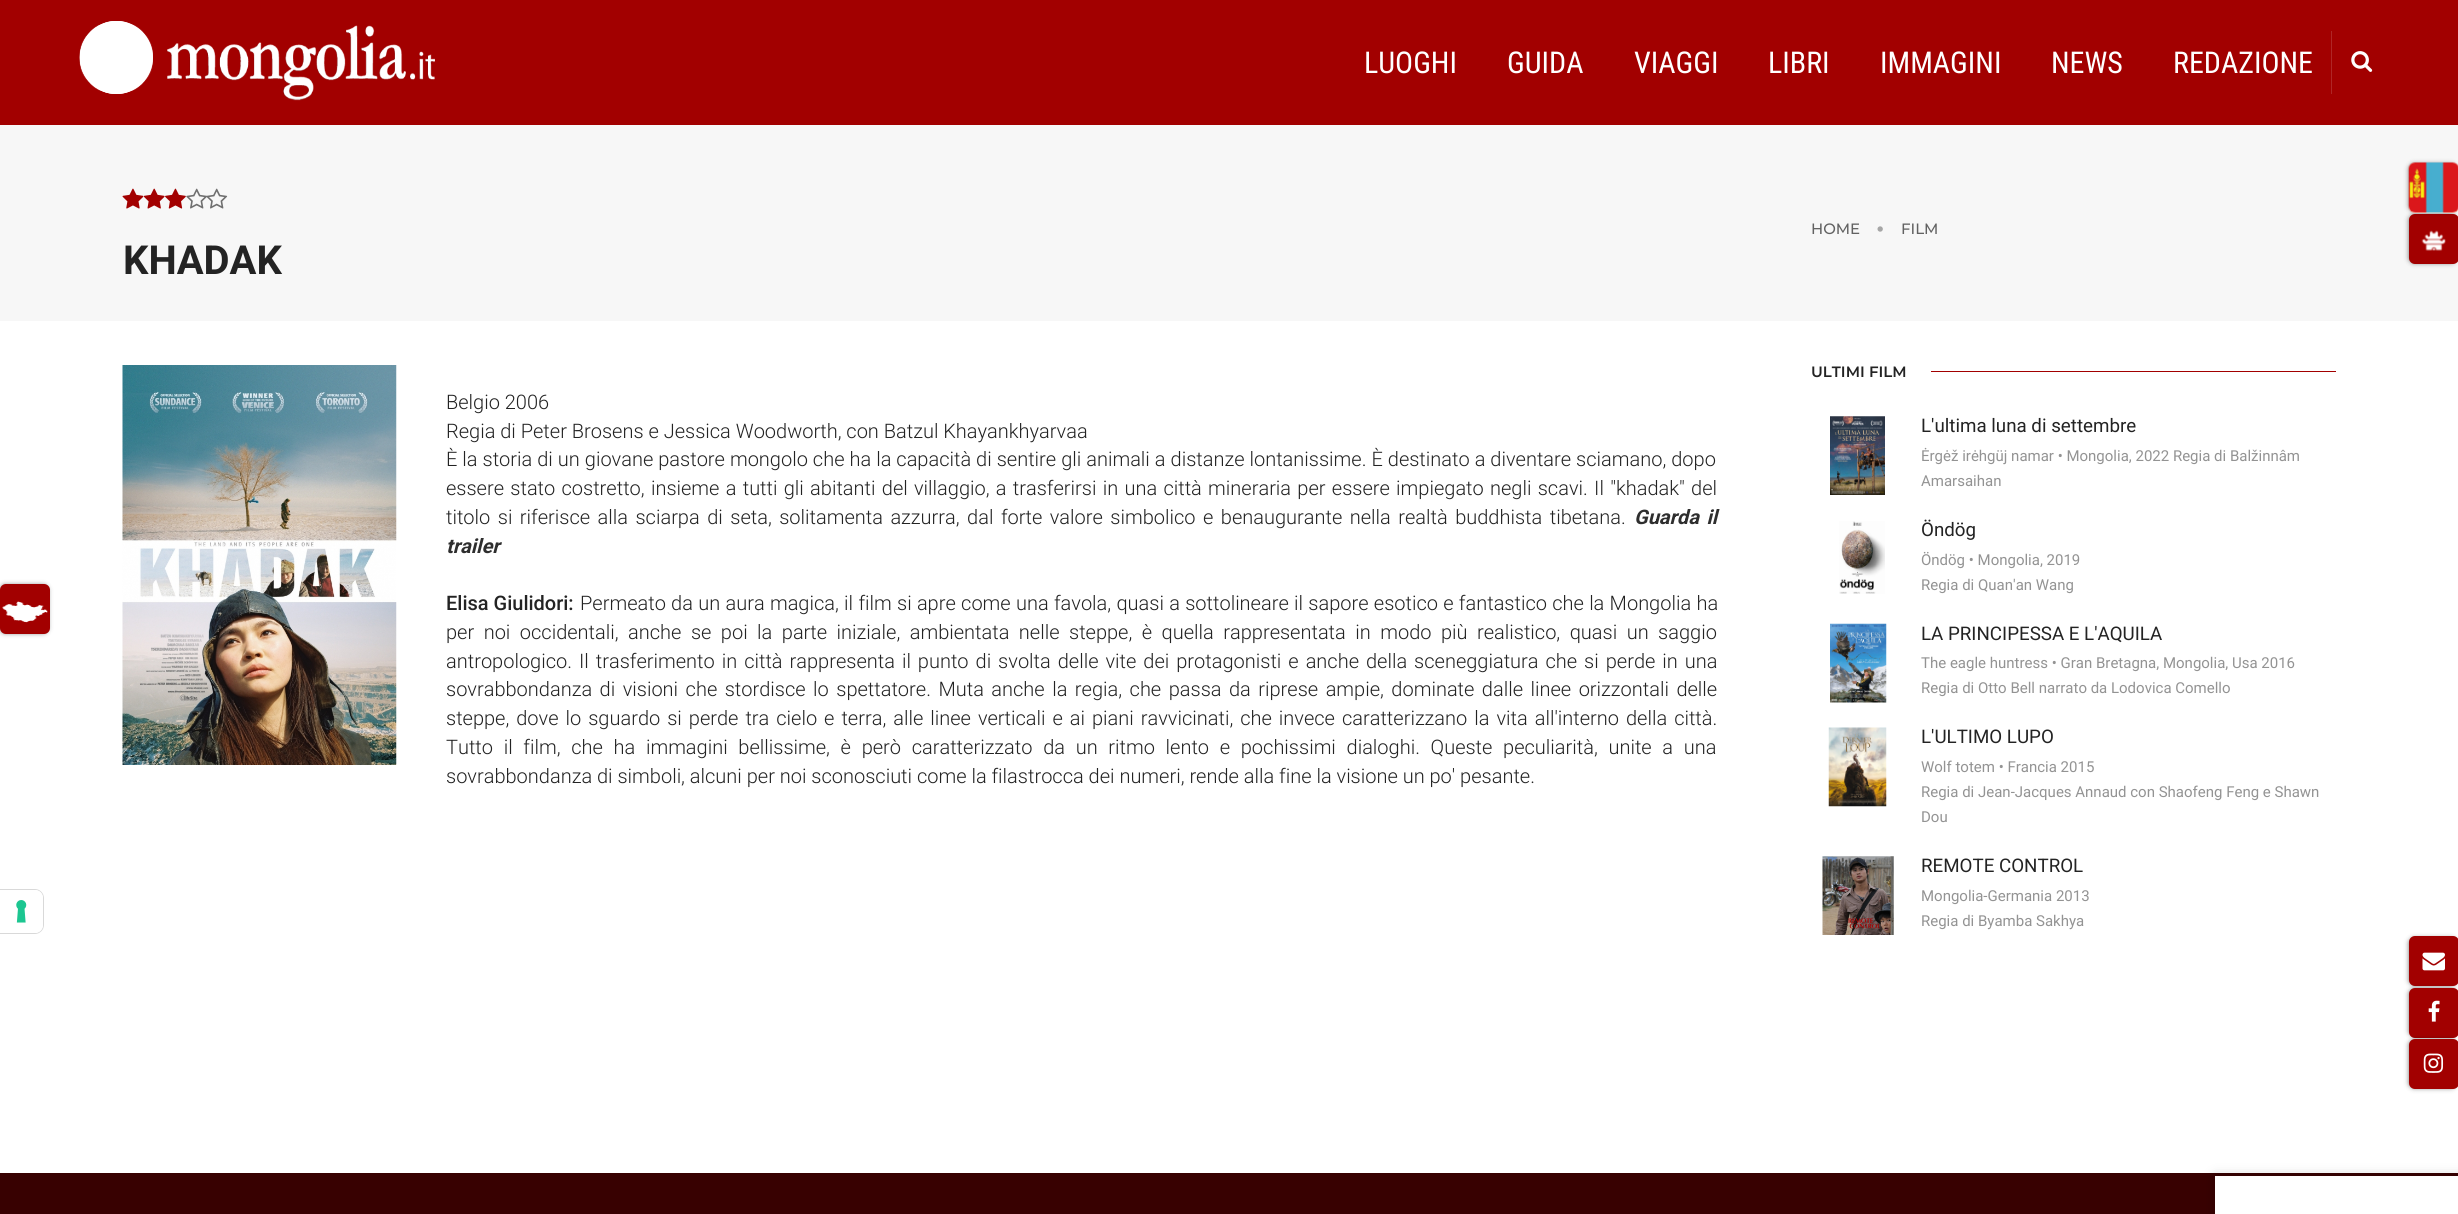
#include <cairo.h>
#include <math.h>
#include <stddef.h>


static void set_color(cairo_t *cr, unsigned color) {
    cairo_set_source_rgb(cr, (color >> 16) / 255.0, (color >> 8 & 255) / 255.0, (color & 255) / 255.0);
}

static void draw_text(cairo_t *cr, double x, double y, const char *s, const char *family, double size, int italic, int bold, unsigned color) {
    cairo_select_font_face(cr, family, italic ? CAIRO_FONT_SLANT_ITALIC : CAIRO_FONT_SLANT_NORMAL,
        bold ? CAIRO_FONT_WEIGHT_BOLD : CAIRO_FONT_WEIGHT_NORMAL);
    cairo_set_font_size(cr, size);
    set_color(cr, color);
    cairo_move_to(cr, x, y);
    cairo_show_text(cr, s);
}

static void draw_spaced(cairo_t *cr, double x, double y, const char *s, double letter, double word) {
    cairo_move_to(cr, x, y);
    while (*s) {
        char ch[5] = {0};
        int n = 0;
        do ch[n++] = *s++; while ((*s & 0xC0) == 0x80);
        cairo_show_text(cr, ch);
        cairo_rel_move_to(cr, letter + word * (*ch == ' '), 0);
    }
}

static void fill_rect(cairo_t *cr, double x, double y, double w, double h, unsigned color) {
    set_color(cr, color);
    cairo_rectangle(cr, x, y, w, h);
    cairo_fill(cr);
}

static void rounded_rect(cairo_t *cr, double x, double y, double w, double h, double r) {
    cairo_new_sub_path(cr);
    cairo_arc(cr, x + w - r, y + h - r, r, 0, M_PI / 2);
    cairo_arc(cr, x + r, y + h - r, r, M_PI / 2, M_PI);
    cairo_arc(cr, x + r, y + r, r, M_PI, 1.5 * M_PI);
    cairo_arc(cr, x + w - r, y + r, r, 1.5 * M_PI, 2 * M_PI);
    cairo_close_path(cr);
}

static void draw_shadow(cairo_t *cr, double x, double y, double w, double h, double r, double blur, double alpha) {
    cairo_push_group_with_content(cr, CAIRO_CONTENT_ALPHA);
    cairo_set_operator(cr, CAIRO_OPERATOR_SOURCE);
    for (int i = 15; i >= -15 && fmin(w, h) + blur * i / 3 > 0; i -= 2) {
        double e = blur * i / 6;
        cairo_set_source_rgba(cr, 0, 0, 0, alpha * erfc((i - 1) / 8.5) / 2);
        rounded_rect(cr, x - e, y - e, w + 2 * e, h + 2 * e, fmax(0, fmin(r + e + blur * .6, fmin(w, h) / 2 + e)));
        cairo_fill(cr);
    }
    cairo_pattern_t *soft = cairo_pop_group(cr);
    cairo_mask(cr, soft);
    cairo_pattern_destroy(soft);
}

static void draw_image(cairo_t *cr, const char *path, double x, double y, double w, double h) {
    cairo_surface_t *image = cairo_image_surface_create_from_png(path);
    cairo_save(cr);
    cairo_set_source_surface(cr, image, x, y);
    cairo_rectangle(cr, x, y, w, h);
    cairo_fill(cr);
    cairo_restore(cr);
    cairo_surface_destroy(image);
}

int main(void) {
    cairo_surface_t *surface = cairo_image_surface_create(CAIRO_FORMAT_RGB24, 2458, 1214);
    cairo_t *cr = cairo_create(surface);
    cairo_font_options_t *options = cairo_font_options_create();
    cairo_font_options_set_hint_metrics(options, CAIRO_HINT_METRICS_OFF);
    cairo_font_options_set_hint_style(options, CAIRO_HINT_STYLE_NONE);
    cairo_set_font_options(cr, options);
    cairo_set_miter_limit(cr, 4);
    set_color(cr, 0xFFFFFF);
    cairo_paint(cr);
    fill_rect(cr, 0, 0, 2458, 125, 0xA20000);
    draw_image(cr, "assets/img1.png", 79, 21, 74, 73);
    cairo_new_path(cr);
    cairo_move_to(cr, 116, 27.5);
    cairo_curve_to(cr, 99.5, 27.5, 86, 41, 86, 57.5);
    cairo_curve_to(cr, 86, 74, 99.5, 87.5, 116, 87.5);
    cairo_curve_to(cr, 132.5, 87.5, 146, 74, 146, 57.5);
    cairo_curve_to(cr, 146, 41, 132.5, 27.5, 116, 27.5);
    cairo_close_path(cr);
    set_color(cr, 0xFFFFFF);
    cairo_set_line_width(cr, 12.5);
    cairo_stroke(cr);
    draw_image(cr, "assets/img2.png", 80, 21, 73, 73);
    cairo_arc(cr, 116.5, 57.5, 30, 0, 2 * M_PI);
    cairo_fill_preserve(cr);
    cairo_set_line_width(cr, 13);
    cairo_stroke(cr);
    draw_image(cr, "assets/img3.png", 167, 25, 268, 76);
    draw_text(cr, 1364, 73, "LUOGHI", "Roboto Condensed", 30, 0, 0, 0xFFFFFF);
    draw_text(cr, 1507, 73, "GUIDA", "Roboto Condensed", 30, 0, 0, 0xFFFFFF);
    draw_text(cr, 1634, 73, "VIAGGI", "Roboto Condensed", 30, 0, 0, 0xFFFFFF);
    draw_text(cr, 1768, 73, "LIBRI", "Roboto Condensed", 30, 0, 0, 0xFFFFFF);
    draw_text(cr, 1880, 73, "IMMAGINI", "Roboto Condensed", 30, 0, 0, 0xFFFFFF);
    draw_text(cr, 2051, 73, "NEWS", "Roboto Condensed", 30, 0, 0, 0xFFFFFF);
    draw_text(cr, 2173, 73, "REDAZIONE", "Roboto Condensed", 30, 0, 0, 0xFFFFFF);
    fill_rect(cr, 2331, 31, 1, 63, 0xB02626);
    draw_image(cr, "assets/img4.png", 2351, 51, 22, 21);
    fill_rect(cr, 0, 125, 2458, 196, 0xF7F7F7);
    set_color(cr, 0x000000);
    draw_shadow(cr, 2409, 215, 47, 48, 5, 2.5, 0.55);
    set_color(cr, 0xA20000);
    rounded_rect(cr, 2409, 214, 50, 50, 6);
    cairo_fill(cr);
    set_color(cr, 0x000000);
    draw_shadow(cr, 2409, 164, 47, 47, 5, 2.5, 0.55);
    set_color(cr, 0xFAEBD7);
    rounded_rect(cr, 2409, 163, 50, 50, 6);
    cairo_fill(cr);
    draw_image(cr, "assets/img5.png", 2408, 162, 50, 51);
    draw_image(cr, "assets/img6.png", 2421, 230, 25, 21);
    set_color(cr, 0x000000);
    draw_shadow(cr, 2409, 938, 47, 47, 5, 2.5, 0.55);
    set_color(cr, 0xA20000);
    rounded_rect(cr, 2409, 936, 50, 50, 6);
    cairo_fill(cr);
    draw_image(cr, "assets/img7.png", 2422, 952, 23, 19);
    set_color(cr, 0x000000);
    draw_shadow(cr, 2409, 989, 47, 47, 5, 2.5, 0.55);
    set_color(cr, 0xA20000);
    rounded_rect(cr, 2409, 988, 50, 50, 6);
    cairo_fill(cr);
    draw_image(cr, "assets/img8.png", 2428, 1000, 12, 22);
    set_color(cr, 0x000000);
    draw_shadow(cr, 2409, 1040, 47, 48, 5, 2.5, 0.55);
    set_color(cr, 0xA20000);
    rounded_rect(cr, 2409, 1039, 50, 50, 6);
    cairo_fill(cr);
    draw_image(cr, "assets/img9.png", 2423, 1053, 21, 20);
    draw_text(cr, 1811, 234, "HOME", "Montserrat Medium", 15, 0, 0, 0x626262);
    draw_image(cr, "assets/img10.png", 1877, 226, 6, 6);
    draw_text(cr, 1901, 234, "FILM", "Montserrat Medium", 15, 0, 0, 0x626262);
    draw_image(cr, "assets/img11.png", 122, 188, 22, 21);
    draw_image(cr, "assets/img12.png", 143, 188, 22, 21);
    draw_image(cr, "assets/img13.png", 165, 188, 21, 21);
    draw_image(cr, "assets/img14.png", 186, 188, 21, 21);
    draw_image(cr, "assets/img15.png", 206, 188, 22, 21);
    draw_text(cr, 123, 274, "KHADAK", "Roboto", 40, 0, 1, 0x232323);
    set_color(cr, 0x000000);
    draw_shadow(cr, 0, 585, 48, 48, 5, 2.5, 0.55);
    set_color(cr, 0xA20000);
    rounded_rect(cr, 0, 584, 50, 50, 6);
    cairo_fill(cr);
    draw_image(cr, "assets/img16.png", 2, 601, 46, 22);
    draw_image(cr, "assets/img17.png", 122, 365, 275, 400);
    draw_text(cr, 446, 409, "Belgio 2006", "Roboto Light", 20, 0, 0, 0x232323);
    draw_text(cr, 446, 438, "Regia di Peter Brosens e Jessica Woodworth, con Batzul Khayankhyarvaa", "Roboto Light", 20, 0, 0, 0x232323);
    draw_spaced(cr, 446, 466, "È la storia di un giovane pastore mongolo che ha la capacità di sentire gli animali a distanze lontanissime. È destinato a diventare sciamano, dopo", 0, 0.1);
    draw_spaced(cr, 446, 495, "essere stato costretto, insieme a tutti gli abitanti del villaggio, a trasferirsi in una città mineraria per essere impiegato negli scavi. Il \"khadak\" del", 0, 1.4);
    draw_spaced(cr, 446, 524, "titolo si riferisce alla sciarpa di seta, solitamenta azzurra, dal forte valore simbolico e benaugurante nella realtà buddhista tibetana.", 0, 2.6);
    cairo_select_font_face(cr, "Roboto", CAIRO_FONT_SLANT_ITALIC, CAIRO_FONT_WEIGHT_BOLD);
    set_color(cr, 0x2E2E2E);
    draw_spaced(cr, 1634, 524, "Guarda il", 0, 2.6);
    draw_text(cr, 446, 553, "trailer", "Roboto", 20, 1, 1, 0x2E2E2E);
    draw_text(cr, 446, 610, "Elisa Giulidori:", "Roboto Medium", 20, 0, 0, 0x232323);
    cairo_select_font_face(cr, "Roboto Light", CAIRO_FONT_SLANT_NORMAL, CAIRO_FONT_WEIGHT_NORMAL);
    draw_spaced(cr, 580, 610, "Permeato da un aura magica, il film si apre come una favola, quasi a sottolineare il sapore esotico e fantastico che la Mongolia ha", 0, 0.4);
    draw_spaced(cr, 446, 639, "per noi occidentali, anche se poi la parte iniziale, ambientata nelle steppe, è quella rappresentata in modo più realistico, quasi un saggio", 0, 4.6);
    draw_spaced(cr, 446, 668, "antropologico. Il trasferimento in città rappresenta il punto di svolta delle vite dei protagonisti e anche della sceneggiatura che si perde in una", 0, 2.1);
    draw_spaced(cr, 446, 696, "sovrabbondanza di visioni che stordisce lo spettatore. Muta anche la regia, che passa da riprese ampie, dominate dalle linee orizzontali delle", 0, 2.6);
    draw_spaced(cr, 446, 725, "steppe, dove lo sguardo si perde tra cielo e terra, alle linee verticali e ai piani ravvicinati, che invece caratterizzano la vita all'interno della città.", 0, 2.1);
    draw_spaced(cr, 446, 754, "Tutto il film, che ha immagini bellissime, è però caratterizzato da un ritmo lento e pochissimi dialoghi. Queste peculiarità, unite a una", 0, 5.8);
    draw_text(cr, 446, 783, "sovrabbondanza di simboli, alcuni per noi sconosciuti come la filastrocca dei numeri, rende alla fine la visione un po' pesante.", "Roboto Light", 20, 0, 0, 0x232323);
    draw_text(cr, 1811, 377, "ULTIMI FILM", "Montserrat SemiBold", 15, 0, 0, 0x232323);
    fill_rect(cr, 1931, 371, 405, 1, 0xA20000);
    draw_image(cr, "assets/img18.png", 1830, 416, 55, 79);
    draw_text(cr, 1921, 432, "L'ultima luna di settembre", "Roboto", 18.75, 0, 0, 0x232323);
    draw_text(cr, 1921, 461, "Ėrgėž irėhgüj namar • Mongolia, 2022 Regia di Balžinnâm", "Roboto", 15, 0, 0, 0x939393);
    draw_text(cr, 1921, 486, "Amarsaihan", "Roboto", 15, 0, 0, 0x939393);
    draw_image(cr, "assets/img19.png", 1839, 521, 46, 73);
    draw_text(cr, 1921, 536, "Öndög", "Roboto", 18.75, 0, 0, 0x232323);
    draw_text(cr, 1921, 565, "Öndög • Mongolia, 2019", "Roboto", 15, 0, 0, 0x939393);
    draw_text(cr, 1921, 590, "Regia di Quan'an Wang", "Roboto", 15, 0, 0, 0x939393);
    draw_image(cr, "assets/img20.png", 1830, 623, 57, 80);
    draw_text(cr, 1921, 640, "LA PRINCIPESSA E L'AQUILA", "Roboto", 18.75, 0, 0, 0x232323);
    draw_text(cr, 1921, 668, "The eagle huntress • Gran Bretagna, Mongolia, Usa 2016", "Roboto", 15, 0, 0, 0x939393);
    draw_text(cr, 1921, 693, "Regia di Otto Bell narrato da Lodovica Comello", "Roboto", 15, 0, 0, 0x939393);
    draw_image(cr, "assets/img21.png", 1828, 727, 59, 80);
    draw_text(cr, 1921, 743, "L'ULTIMO LUPO", "Roboto", 18.75, 0, 0, 0x232323);
    draw_text(cr, 1921, 772, "Wolf totem • Francia 2015", "Roboto", 15, 0, 0, 0x939393);
    draw_text(cr, 1921, 797, "Regia di Jean-Jacques Annaud con Shaofeng Feng e Shawn", "Roboto", 15, 0, 0, 0x939393);
    draw_text(cr, 1921, 822, "Dou", "Roboto", 15, 0, 0, 0x939393);
    draw_image(cr, "assets/img22.png", 1822, 856, 72, 79);
    draw_text(cr, 1921, 872, "REMOTE CONTROL", "Roboto", 18.75, 0, 0, 0x232323);
    draw_text(cr, 1921, 901, "Mongolia-Germania 2013", "Roboto", 15, 0, 0, 0x939393);
    draw_text(cr, 1921, 926, "Regia di Byamba Sakhya", "Roboto", 15, 0, 0, 0x939393);
    cairo_new_path(cr);
    cairo_move_to(cr, -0.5, 889.5);
    cairo_line_to(cr, 35, 889.5);
    cairo_curve_to(cr, 39.5, 889.5, 43.5, 893.5, 43.5, 898);
    cairo_line_to(cr, 43.5, 925);
    cairo_curve_to(cr, 43.5, 929.5, 39.5, 933.5, 35, 933.5);
    cairo_line_to(cr, -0.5, 933.5);
    cairo_close_path(cr);
    set_color(cr, 0xD9D9D9);
    cairo_set_line_width(cr, 1);
    cairo_stroke(cr);
    set_color(cr, 0xFFFFFF);
    cairo_new_path(cr);
    cairo_move_to(cr, 0, 890);
    cairo_line_to(cr, 35, 890);
    cairo_curve_to(cr, 39.5, 890, 43, 893.5, 43, 898);
    cairo_line_to(cr, 43, 925);
    cairo_curve_to(cr, 43, 929.5, 39.5, 933, 35, 933);
    cairo_line_to(cr, 0, 933);
    cairo_close_path(cr);
    cairo_fill(cr);
    draw_image(cr, "assets/img23.png", 16, 900, 11, 23);
    fill_rect(cr, 0, 1173, 2458, 41, 0x380101);
    set_color(cr, 0x000000);
    draw_shadow(cr, 2215, 1176, 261, 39, 0, 6, 0.2);
    fill_rect(cr, 2215, 1176, 243, 38, 0xFFFFFF);
    cairo_surface_write_to_png(surface, "output.png");
    cairo_font_options_destroy(options);
    cairo_destroy(cr);
    cairo_surface_destroy(surface);
    return 0;
}
